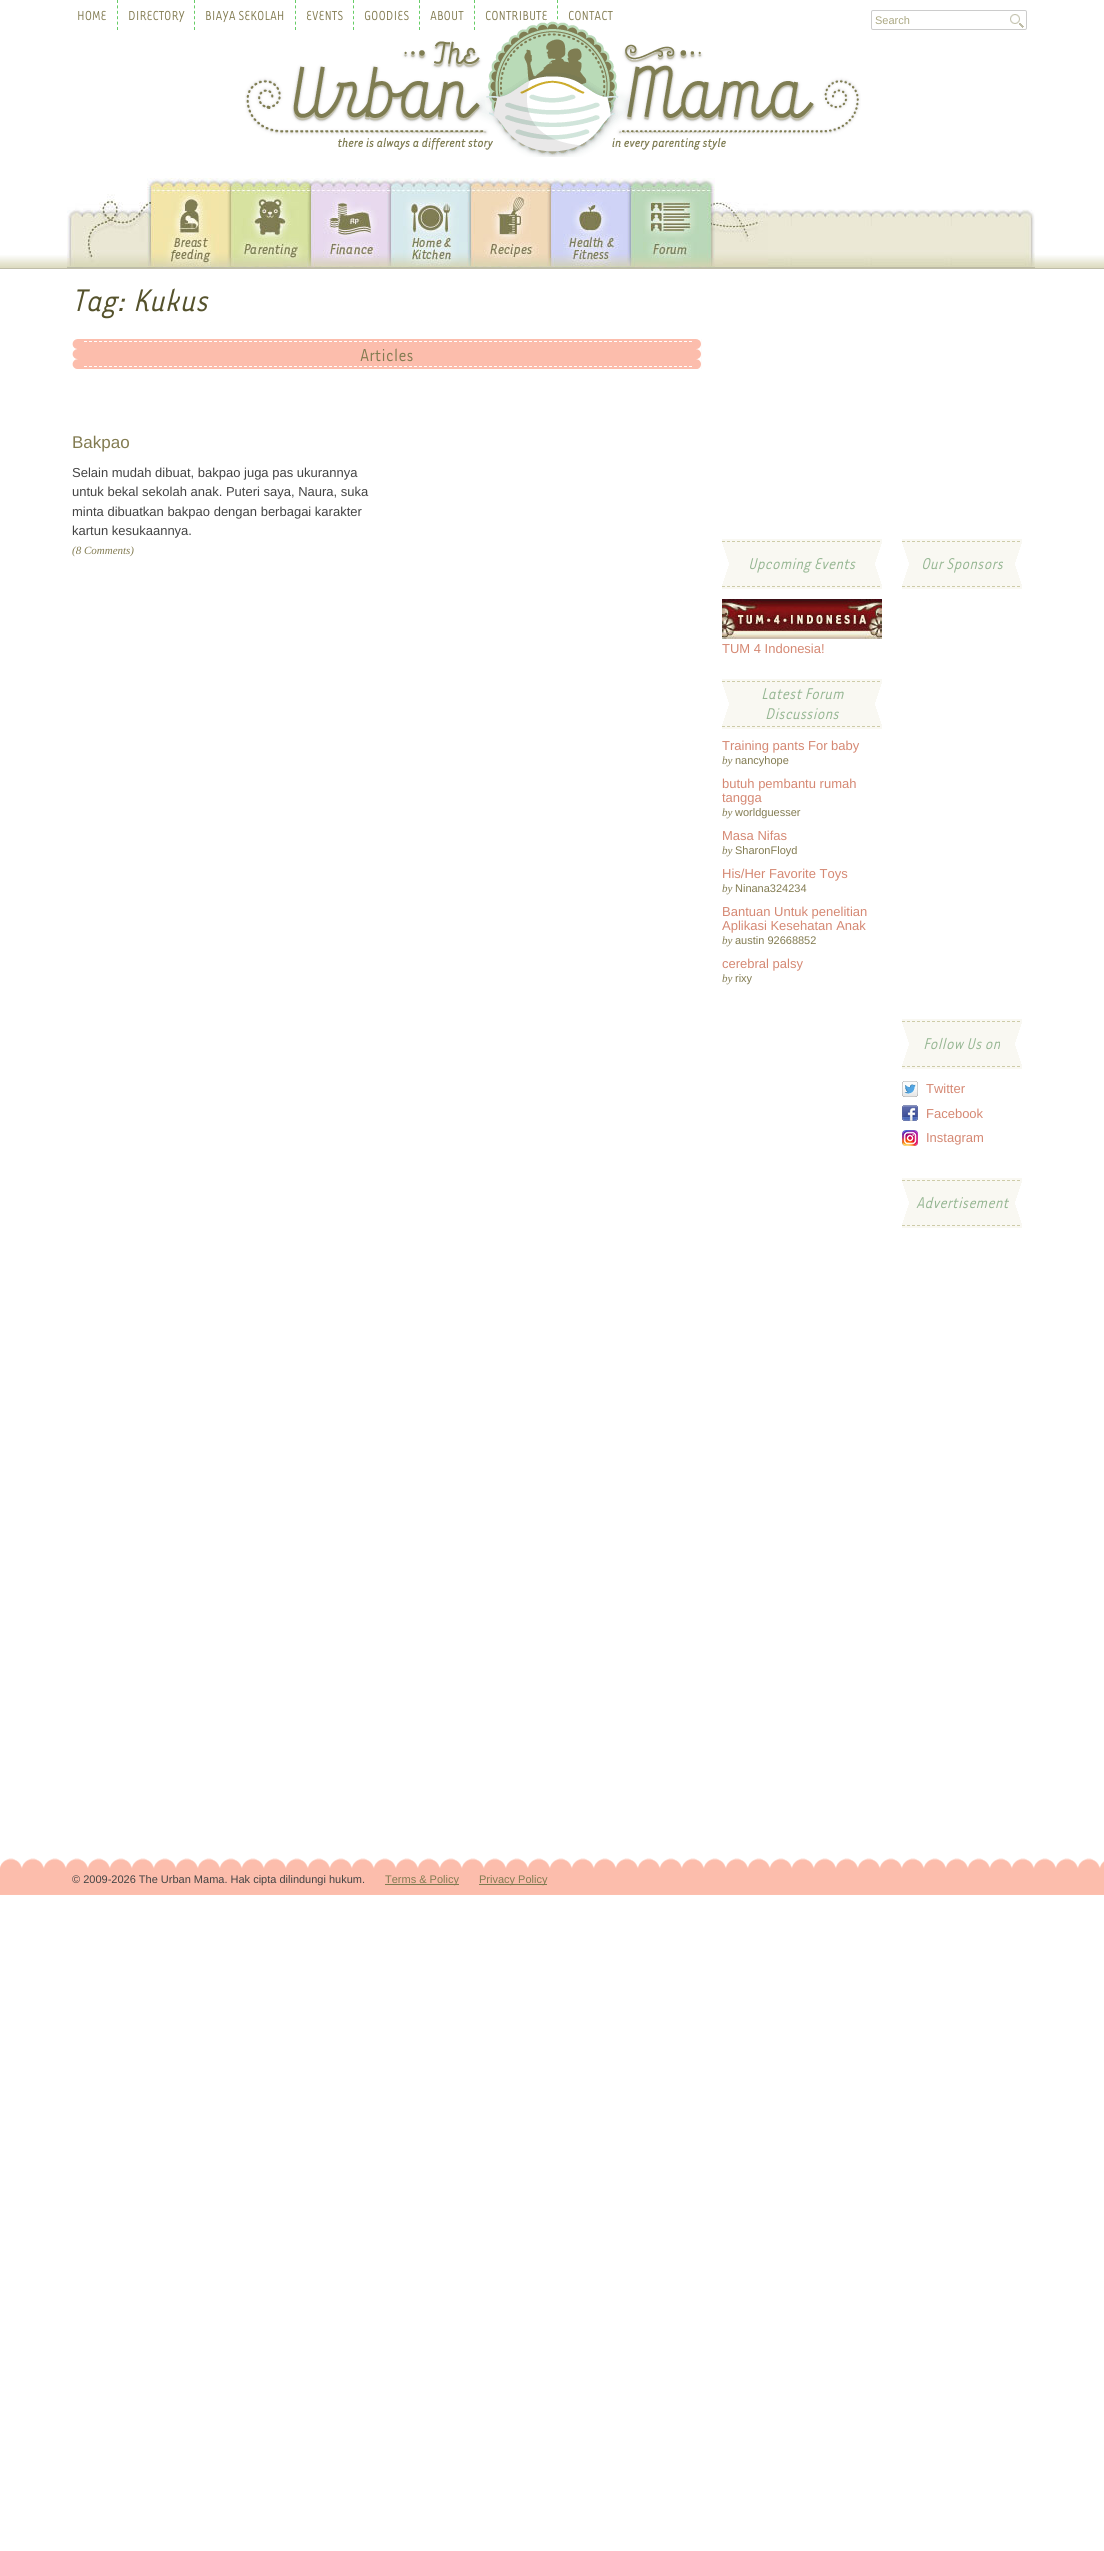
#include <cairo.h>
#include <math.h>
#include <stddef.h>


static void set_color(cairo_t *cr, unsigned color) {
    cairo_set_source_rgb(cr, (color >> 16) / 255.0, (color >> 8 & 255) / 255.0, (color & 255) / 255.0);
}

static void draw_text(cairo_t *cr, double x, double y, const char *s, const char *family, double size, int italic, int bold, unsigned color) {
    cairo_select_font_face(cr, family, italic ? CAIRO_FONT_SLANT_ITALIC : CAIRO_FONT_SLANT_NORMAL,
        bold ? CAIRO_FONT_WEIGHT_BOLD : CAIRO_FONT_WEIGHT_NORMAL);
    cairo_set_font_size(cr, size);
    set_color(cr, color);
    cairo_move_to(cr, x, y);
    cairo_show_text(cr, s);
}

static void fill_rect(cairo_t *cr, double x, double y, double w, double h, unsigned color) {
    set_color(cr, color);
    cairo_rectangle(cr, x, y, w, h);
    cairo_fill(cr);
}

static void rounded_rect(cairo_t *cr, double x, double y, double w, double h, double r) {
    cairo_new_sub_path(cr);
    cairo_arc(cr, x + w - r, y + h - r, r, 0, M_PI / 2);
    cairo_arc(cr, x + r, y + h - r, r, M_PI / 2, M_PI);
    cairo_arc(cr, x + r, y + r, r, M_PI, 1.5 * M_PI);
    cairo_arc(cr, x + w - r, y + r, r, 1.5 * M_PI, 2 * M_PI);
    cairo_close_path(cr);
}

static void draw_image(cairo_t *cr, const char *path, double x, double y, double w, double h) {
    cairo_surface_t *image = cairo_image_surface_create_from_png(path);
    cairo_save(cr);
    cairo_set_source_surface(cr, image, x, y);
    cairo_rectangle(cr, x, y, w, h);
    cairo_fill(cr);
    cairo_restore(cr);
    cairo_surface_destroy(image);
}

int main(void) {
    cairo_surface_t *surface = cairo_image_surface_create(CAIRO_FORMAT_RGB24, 1104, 2551);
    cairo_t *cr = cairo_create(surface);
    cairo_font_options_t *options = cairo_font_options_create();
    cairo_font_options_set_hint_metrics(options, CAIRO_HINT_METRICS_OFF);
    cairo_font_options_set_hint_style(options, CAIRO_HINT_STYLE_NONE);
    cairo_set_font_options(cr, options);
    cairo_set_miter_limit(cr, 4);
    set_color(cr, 0xFFFFFF);
    cairo_paint(cr);
    draw_image(cr, "assets/img1.png", 0, 255, 1104, 14);
    cairo_new_path(cr);
    cairo_move_to(cr, 117.5, 0);
    cairo_line_to(cr, 117.5, 30);
    set_color(cr, 0x66CC66);
    cairo_set_line_width(cr, 1);
    cairo_set_dash(cr, (double[]){3, 2.4}, 2, 0);
    cairo_stroke(cr);
    draw_text(cr, 77, 20, "HOME", "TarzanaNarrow", 15, 0, 0, 0x827B51);
    cairo_new_path(cr);
    cairo_move_to(cr, 194.5, 0);
    cairo_line_to(cr, 194.5, 30);
    set_color(cr, 0x66CC66);
    cairo_stroke(cr);
    draw_text(cr, 128, 20, "DIRECTORY", "TarzanaNarrow", 15, 0, 0, 0x827B51);
    cairo_new_path(cr);
    cairo_move_to(cr, 295.5, 0);
    cairo_line_to(cr, 295.5, 30);
    set_color(cr, 0x66CC66);
    cairo_stroke(cr);
    draw_text(cr, 205, 20, "BIAYA SEKOLAH", "TarzanaNarrow", 15, 0, 0, 0x827B51);
    cairo_new_path(cr);
    cairo_move_to(cr, 353.5, 0);
    cairo_line_to(cr, 353.5, 30);
    set_color(cr, 0x66CC66);
    cairo_stroke(cr);
    draw_text(cr, 306, 20, "EVENTS", "TarzanaNarrow", 15, 0, 0, 0x827B51);
    cairo_new_path(cr);
    cairo_move_to(cr, 419.5, 0);
    cairo_line_to(cr, 419.5, 30);
    set_color(cr, 0x66CC66);
    cairo_stroke(cr);
    draw_text(cr, 364, 20, "GOODIES", "TarzanaNarrow", 15, 0, 0, 0x827B51);
    cairo_new_path(cr);
    cairo_move_to(cr, 474.5, 0);
    cairo_line_to(cr, 474.5, 30);
    set_color(cr, 0x66CC66);
    cairo_stroke(cr);
    draw_text(cr, 430, 20, "ABOUT", "TarzanaNarrow", 15, 0, 0, 0x827B51);
    cairo_new_path(cr);
    cairo_move_to(cr, 557.5, 0);
    cairo_line_to(cr, 557.5, 30);
    set_color(cr, 0x66CC66);
    cairo_stroke(cr);
    draw_text(cr, 485, 20, "CONTRIBUTE", "TarzanaNarrow", 15, 0, 0, 0x827B51);
    draw_text(cr, 568, 20, "CONTACT", "TarzanaNarrow", 15, 0, 0, 0x827B51);
    draw_image(cr, "assets/img2.png", 1010, 14, 14, 14);
    rounded_rect(cr, 871.5, 10.5, 155, 19, 1.5);
    set_color(cr, 0xCCCCCC);
    cairo_set_dash(cr, NULL, 0, 0);
    cairo_stroke(cr);
    draw_text(cr, 875, 24, "Search", "Liberation Sans", 11, 0, 0, 0xABA883);
    draw_image(cr, "assets/img3.png", 245, 20, 616, 137);
    draw_image(cr, "assets/img4.png", 67, 178, 701, 90);
    draw_image(cr, "assets/img5.png", 768, 209, 267, 59);
    draw_text(cr, 72, 311, "Tag: Kukus", "TarzanaNarrow", 36, 1, 0, 0x55522C);
    fill_rect(cr, 72, 339, 630, 30, 0xFCBDAC);
    draw_image(cr, "assets/img6.png", 72, 339, 630, 30);
    draw_text(cr, 360, 361, "Articles", "TarzanaNarrow", 20, 0, 0, 0x827B51);
    draw_text(cr, 72, 448, "Bakpao", "Liberation Sans", 17, 0, 0, 0x827B51);
    draw_text(cr, 72, 477, "Selain mudah dibuat, bakpao juga pas ukurannya", "Liberation Sans", 13, 0, 0, 0x444444);
    draw_text(cr, 72, 496, "untuk bekal sekolah anak. Puteri saya, Naura, suka", "Liberation Sans", 13, 0, 0, 0x444444);
    draw_text(cr, 72, 516, "minta dibuatkan bakpao dengan berbagai karakter", "Liberation Sans", 13, 0, 0, 0x444444);
    draw_text(cr, 72, 535, "kartun kesukaannya.", "Liberation Sans", 13, 0, 0, 0x444444);
    draw_text(cr, 72, 554, "(8 Comments)", "Liberation Serif", 11, 1, 0, 0x827B51);
    draw_image(cr, "assets/img7.png", 722, 539, 160, 50);
    draw_text(cr, 748, 569, "Upcoming Events", "TarzanaNarrow", 18, 1, 0, 0x95B692);
    draw_image(cr, "assets/img8.png", 722, 599, 160, 40);
    draw_text(cr, 722, 653, "TUM 4 Indonesia!", "Liberation Sans", 13, 0, 0, 0xD58873);
    draw_image(cr, "assets/img7.png", 722, 679, 160, 50);
    draw_text(cr, 761, 699, "Latest Forum", "TarzanaNarrow", 18, 1, 0, 0x95B692);
    draw_text(cr, 765, 719, "Discussions", "TarzanaNarrow", 18, 1, 0, 0x95B692);
    draw_text(cr, 722, 750, "Training pants For baby", "Liberation Sans", 13, 0, 0, 0xD58873);
    draw_text(cr, 722, 764, "by", "Liberation Serif", 11, 1, 0, 0x827B51);
    draw_text(cr, 735, 764, "nancyhope", "Liberation Sans", 11, 0, 0, 0x827B51);
    draw_text(cr, 722, 788, "butuh pembantu rumah", "Liberation Sans", 13, 0, 0, 0xD58873);
    draw_text(cr, 722, 802, "tangga", "Liberation Sans", 13, 0, 0, 0xD58873);
    draw_text(cr, 722, 816, "by", "Liberation Serif", 11, 1, 0, 0x827B51);
    draw_text(cr, 735, 816, "worldguesser", "Liberation Sans", 11, 0, 0, 0x827B51);
    draw_text(cr, 722, 840, "Masa Nifas", "Liberation Sans", 13, 0, 0, 0xD58873);
    draw_text(cr, 722, 854, "by", "Liberation Serif", 11, 1, 0, 0x827B51);
    draw_text(cr, 735, 854, "SharonFloyd", "Liberation Sans", 11, 0, 0, 0x827B51);
    draw_text(cr, 722, 878, "His/Her Favorite Toys", "Liberation Sans", 13, 0, 0, 0xD58873);
    draw_text(cr, 722, 892, "by", "Liberation Serif", 11, 1, 0, 0x827B51);
    draw_text(cr, 735, 892, "Ninana324234", "Liberation Sans", 11, 0, 0, 0x827B51);
    draw_text(cr, 722, 916, "Bantuan Untuk penelitian", "Liberation Sans", 13, 0, 0, 0xD58873);
    draw_text(cr, 722, 930, "Aplikasi Kesehatan Anak", "Liberation Sans", 13, 0, 0, 0xD58873);
    draw_text(cr, 722, 944, "by", "Liberation Serif", 11, 1, 0, 0x827B51);
    draw_text(cr, 735, 944, "austin 92668852", "Liberation Sans", 11, 0, 0, 0x827B51);
    draw_text(cr, 722, 968, "cerebral palsy", "Liberation Sans", 13, 0, 0, 0xD58873);
    draw_text(cr, 722, 982, "by", "Liberation Serif", 11, 1, 0, 0x827B51);
    draw_text(cr, 735, 982, "rixy", "Liberation Sans", 11, 0, 0, 0x827B51);
    draw_image(cr, "assets/img9.png", 902, 539, 120, 50);
    draw_text(cr, 921, 569, "Our Sponsors", "TarzanaNarrow", 18, 1, 0, 0x95B692);
    draw_image(cr, "assets/img9.png", 902, 1019, 120, 50);
    draw_text(cr, 923, 1049, "Follow Us on", "TarzanaNarrow", 18, 1, 0, 0x95B692);
    draw_image(cr, "assets/img10.png", 902, 1081, 16, 16);
    draw_text(cr, 926, 1093, "Twitter", "Liberation Sans", 13, 0, 0, 0xD58873);
    draw_image(cr, "assets/img11.png", 902, 1105, 16, 16);
    draw_text(cr, 926, 1118, "Facebook", "Liberation Sans", 13, 0, 0, 0xD58873);
    draw_image(cr, "assets/img12.png", 902, 1130, 16, 16);
    draw_text(cr, 926, 1142, "Instagram", "Liberation Sans", 13, 0, 0, 0xD58873);
    draw_image(cr, "assets/img9.png", 902, 1178, 120, 50);
    draw_text(cr, 916, 1208, "Advertisement", "TarzanaNarrow", 18, 1, 0, 0x95B692);
    draw_image(cr, "assets/img13.png", 0, 1858, 1104, 37);
    draw_text(cr, 72, 1883, "© 2009-2026 The Urban Mama. Hak cipta dilindungi hukum.", "Liberation Sans", 11, 0, 0, 0x444444);
    fill_rect(cr, 385, 1884, 74, 1, 0x7F7C52);
    draw_text(cr, 385, 1883, "Terms & Policy", "Liberation Sans", 11, 0, 0, 0x827B51);
    fill_rect(cr, 479, 1884, 68, 1, 0x7F7C52);
    draw_text(cr, 479, 1883, "Privacy Policy", "Liberation Sans", 11, 0, 0, 0x827B51);
    cairo_surface_write_to_png(surface, "output.png");
    cairo_font_options_destroy(options);
    cairo_destroy(cr);
    cairo_surface_destroy(surface);
    return 0;
}
